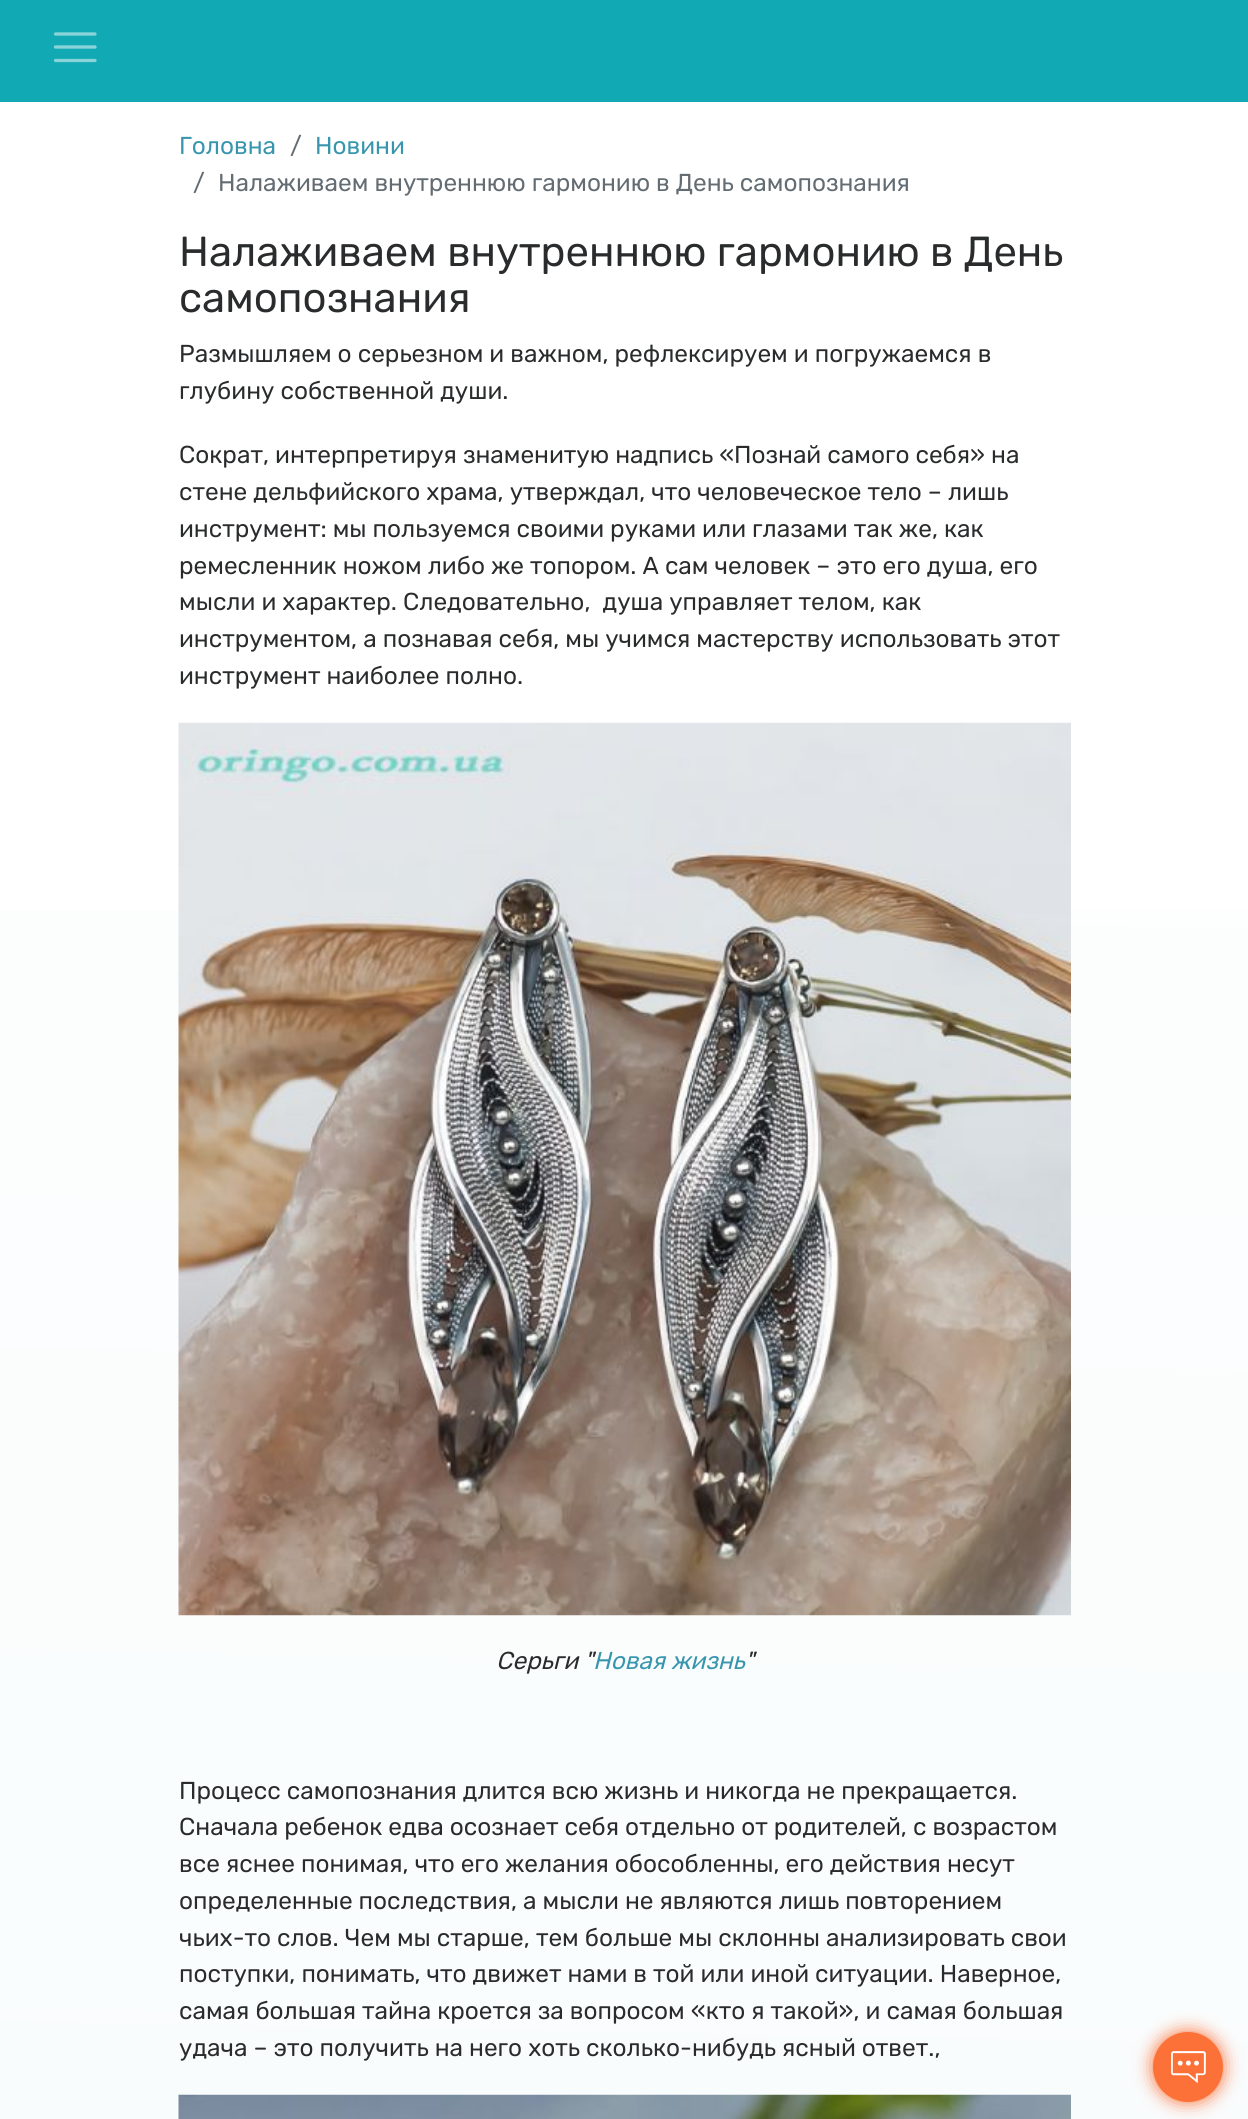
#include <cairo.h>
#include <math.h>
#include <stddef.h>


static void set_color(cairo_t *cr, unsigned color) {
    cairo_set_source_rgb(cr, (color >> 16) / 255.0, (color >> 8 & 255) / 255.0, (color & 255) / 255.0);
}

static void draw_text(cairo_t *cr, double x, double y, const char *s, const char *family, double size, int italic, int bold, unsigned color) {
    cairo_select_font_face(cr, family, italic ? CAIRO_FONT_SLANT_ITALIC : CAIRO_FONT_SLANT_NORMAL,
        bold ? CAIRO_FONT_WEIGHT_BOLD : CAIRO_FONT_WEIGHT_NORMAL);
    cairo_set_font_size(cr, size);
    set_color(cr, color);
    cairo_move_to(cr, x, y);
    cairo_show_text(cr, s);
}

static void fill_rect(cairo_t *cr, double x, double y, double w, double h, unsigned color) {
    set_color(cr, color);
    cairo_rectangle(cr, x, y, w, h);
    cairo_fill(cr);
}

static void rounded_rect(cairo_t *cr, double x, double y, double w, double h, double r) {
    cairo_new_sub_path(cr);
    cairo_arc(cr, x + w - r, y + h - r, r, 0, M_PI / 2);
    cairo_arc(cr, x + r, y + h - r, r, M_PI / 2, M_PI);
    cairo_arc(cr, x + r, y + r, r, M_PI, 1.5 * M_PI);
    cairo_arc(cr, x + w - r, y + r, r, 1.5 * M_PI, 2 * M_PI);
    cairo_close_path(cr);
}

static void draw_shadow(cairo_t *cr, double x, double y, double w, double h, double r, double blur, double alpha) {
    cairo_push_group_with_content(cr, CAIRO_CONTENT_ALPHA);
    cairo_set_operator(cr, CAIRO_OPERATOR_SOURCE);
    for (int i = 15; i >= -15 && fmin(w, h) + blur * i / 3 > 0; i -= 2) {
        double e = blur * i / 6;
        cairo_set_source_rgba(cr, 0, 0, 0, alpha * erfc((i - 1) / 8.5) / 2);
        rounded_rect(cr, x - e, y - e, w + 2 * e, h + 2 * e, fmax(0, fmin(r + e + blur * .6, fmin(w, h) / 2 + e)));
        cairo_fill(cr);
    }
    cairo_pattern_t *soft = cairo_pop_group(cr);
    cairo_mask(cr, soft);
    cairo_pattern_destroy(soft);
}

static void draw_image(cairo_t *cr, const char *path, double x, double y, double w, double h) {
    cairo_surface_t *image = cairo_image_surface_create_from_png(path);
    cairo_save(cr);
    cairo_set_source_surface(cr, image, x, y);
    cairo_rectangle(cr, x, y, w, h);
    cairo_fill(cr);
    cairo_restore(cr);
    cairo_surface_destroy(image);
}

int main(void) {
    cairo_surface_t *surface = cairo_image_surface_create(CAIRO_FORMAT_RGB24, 1248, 2119);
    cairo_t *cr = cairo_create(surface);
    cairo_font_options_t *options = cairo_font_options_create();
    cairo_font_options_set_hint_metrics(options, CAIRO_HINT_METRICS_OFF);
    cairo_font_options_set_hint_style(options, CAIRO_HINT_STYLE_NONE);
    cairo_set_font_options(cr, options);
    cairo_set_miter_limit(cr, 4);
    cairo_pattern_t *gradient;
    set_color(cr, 0xFFFFFF);
    cairo_paint(cr);
    gradient = cairo_pattern_create_linear(674, -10, 576, 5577);
    cairo_pattern_add_color_stop_rgba(gradient, 0, 1, 1, 1, 1);
    cairo_pattern_add_color_stop_rgba(gradient, 1, 0.941, 0.973, 0.976, 1);
    cairo_set_source(cr, gradient);
    cairo_pattern_destroy(gradient);
    cairo_rectangle(cr, 0, 910, 1248, 1209);
    cairo_fill(cr);
    fill_rect(cr, 0, 0, 1248, 102, 0x11A9B3);
    cairo_new_path(cr);
    cairo_move_to(cr, 55.5, 34);
    cairo_line_to(cr, 95, 34);
    cairo_move_to(cr, 55.5, 47);
    cairo_line_to(cr, 95, 47);
    cairo_move_to(cr, 55.5, 60.5);
    cairo_line_to(cr, 95, 60.5);
    set_color(cr, 0x88D4D9);
    cairo_set_line_width(cr, 3.3);
    cairo_set_line_cap(cr, CAIRO_LINE_CAP_ROUND);
    cairo_stroke(cr);
    draw_text(cr, 179, 154, "Головна", "Rubik", 24.5, 0, 0, 0x3796AD);
    draw_text(cr, 290, 154, "/", "Rubik", 24.5, 0, 0, 0x636C72);
    draw_text(cr, 315, 154, "Новини", "Rubik", 24.5, 0, 0, 0x3796AD);
    draw_text(cr, 193, 191, "/", "Rubik", 24.5, 0, 0, 0x636C72);
    draw_text(cr, 218, 191, "Налаживаем внутреннюю гармонию в День самопознания", "Rubik", 24.5, 0, 0, 0x636C72);
    draw_text(cr, 179, 266, "Налаживаем внутреннюю гармонию в День", "Rubik", 42, 0, 0, 0x292B2C);
    draw_text(cr, 179, 312, "самопознания", "Rubik", 42, 0, 0, 0x292B2C);
    draw_text(cr, 179, 362, "Размышляем о серьезном и важном, рефлексируем и погружаемся в", "Rubik", 24.5, 0, 0, 0x292B2C);
    draw_text(cr, 179, 399, "глубину собственной души.", "Rubik", 24.5, 0, 0, 0x292B2C);
    draw_text(cr, 179, 463, "Сократ, интерпретируя знаменитую надпись «Познай самого себя» на", "Rubik", 24.5, 0, 0, 0x292B2C);
    draw_text(cr, 179, 500, "стене дельфийского храма, утверждал, что человеческое тело – лишь", "Rubik", 24.5, 0, 0, 0x292B2C);
    draw_text(cr, 179, 537, "инструмент: мы пользуемся своими руками или глазами так же, как", "Rubik", 24.5, 0, 0, 0x292B2C);
    draw_text(cr, 179, 574, "ремесленник ножом либо же топором. А сам человек – это его душа, его", "Rubik", 24.5, 0, 0, 0x292B2C);
    draw_text(cr, 179, 610, "мысли и характер. Следовательно,  душа управляет телом, как", "Rubik", 24.5, 0, 0, 0x292B2C);
    draw_text(cr, 179, 647, "инструментом, а познавая себя, мы учимся мастерству использовать этот", "Rubik", 24.5, 0, 0, 0x292B2C);
    draw_text(cr, 179, 684, "инструмент наиболее полно.", "Rubik", 24.5, 0, 0, 0x292B2C);
    draw_image(cr, "assets/img1.png", 178, 722, 893, 894);
    draw_text(cr, 496, 1669, "Серьги \"", "Rubik", 24.5, 1, 0, 0x292B2C);
    draw_text(cr, 593, 1669, "Новая жизнь", "Rubik", 24.5, 1, 0, 0x3796AD);
    draw_text(cr, 745, 1669, "\"", "Rubik", 24.5, 1, 0, 0x292B2C);
    draw_text(cr, 179, 1799, "Процесс самопознания длится всю жизнь и никогда не прекращается.", "Rubik", 24.5, 0, 0, 0x292B2C);
    draw_text(cr, 179, 1835, "Сначала ребенок едва осознает себя отдельно от родителей, с возрастом", "Rubik", 24.5, 0, 0, 0x292B2C);
    draw_text(cr, 179, 1872, "все яснее понимая, что его желания обособленны, его действия несут", "Rubik", 24.5, 0, 0, 0x292B2C);
    draw_text(cr, 179, 1909, "определенные последствия, а мысли не являются лишь повторением", "Rubik", 24.5, 0, 0, 0x292B2C);
    draw_text(cr, 179, 1946, "чьих-то слов. Чем мы старше, тем больше мы склонны анализировать свои", "Rubik", 24.5, 0, 0, 0x292B2C);
    draw_text(cr, 179, 1982, "поступки, понимать, что движет нами в той или иной ситуации. Наверное,", "Rubik", 24.5, 0, 0, 0x292B2C);
    draw_text(cr, 179, 2019, "самая большая тайна кроется за вопросом «кто я такой», и самая большая", "Rubik", 24.5, 0, 0, 0x292B2C);
    draw_text(cr, 179, 2056, "удача – это получить на него хоть сколько-нибудь ясный ответ.,", "Rubik", 24.5, 0, 0, 0x292B2C);
    draw_image(cr, "assets/img2.png", 178, 2094, 893, 25);
    set_color(cr, 0xFB7137);
    draw_shadow(cr, 1153, 2032, 70, 70, 35, 9, 1);
    set_color(cr, 0xFB7137);
    cairo_arc(cr, 1188, 2067, 35, 0, 2 * M_PI);
    cairo_fill(cr);
    draw_image(cr, "assets/img3.png", 1171, 2051, 35, 32);
    cairo_surface_write_to_png(surface, "output.png");
    cairo_font_options_destroy(options);
    cairo_destroy(cr);
    cairo_surface_destroy(surface);
    return 0;
}
